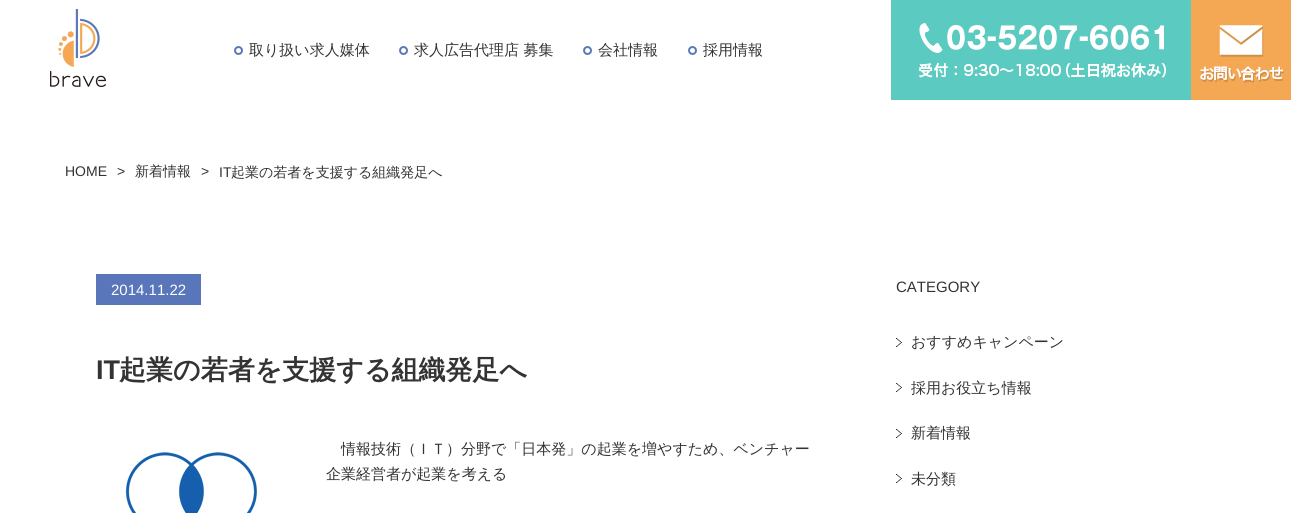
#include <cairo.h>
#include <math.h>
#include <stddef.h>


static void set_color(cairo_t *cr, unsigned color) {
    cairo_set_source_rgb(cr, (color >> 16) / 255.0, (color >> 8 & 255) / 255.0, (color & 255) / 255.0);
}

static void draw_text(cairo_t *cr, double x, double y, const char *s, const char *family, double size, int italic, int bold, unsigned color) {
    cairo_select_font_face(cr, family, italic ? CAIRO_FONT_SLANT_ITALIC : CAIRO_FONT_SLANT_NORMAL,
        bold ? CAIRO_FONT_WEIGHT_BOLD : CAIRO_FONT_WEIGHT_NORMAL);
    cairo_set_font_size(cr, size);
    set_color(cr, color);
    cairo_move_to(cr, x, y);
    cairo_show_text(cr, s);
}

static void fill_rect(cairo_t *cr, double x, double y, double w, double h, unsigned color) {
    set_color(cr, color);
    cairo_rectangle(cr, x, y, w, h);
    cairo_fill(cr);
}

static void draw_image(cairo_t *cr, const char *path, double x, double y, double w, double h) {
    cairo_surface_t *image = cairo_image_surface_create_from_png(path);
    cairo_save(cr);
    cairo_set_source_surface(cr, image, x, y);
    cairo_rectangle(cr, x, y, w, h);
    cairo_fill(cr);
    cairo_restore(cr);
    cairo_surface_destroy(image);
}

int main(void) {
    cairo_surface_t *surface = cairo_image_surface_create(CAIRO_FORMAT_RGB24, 1291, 513);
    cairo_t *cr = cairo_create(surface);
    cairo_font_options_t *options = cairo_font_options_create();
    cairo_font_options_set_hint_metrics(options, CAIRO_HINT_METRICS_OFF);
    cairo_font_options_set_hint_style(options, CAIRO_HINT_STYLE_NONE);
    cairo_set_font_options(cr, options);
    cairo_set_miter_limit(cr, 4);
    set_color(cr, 0xFFFFFF);
    cairo_paint(cr);
    draw_image(cr, "assets/img1.png", 50, 9, 56, 78);
    draw_image(cr, "assets/img2.png", 234, 46, 9, 9);
    draw_text(cr, 249, 55, "取り扱い求人媒体", "WenQuanYi Zen Hei Medium", 15, 0, 0, 0x333333);
    draw_image(cr, "assets/img2.png", 399, 46, 9, 9);
    draw_text(cr, 414, 55, "求人広告代理店 募集", "WenQuanYi Zen Hei Medium", 15, 0, 0, 0x333333);
    draw_image(cr, "assets/img2.png", 583, 46, 9, 9);
    draw_text(cr, 598, 55, "会社情報", "WenQuanYi Zen Hei Medium", 15, 0, 0, 0x333333);
    draw_image(cr, "assets/img2.png", 688, 46, 9, 9);
    draw_text(cr, 703, 55, "採用情報", "WenQuanYi Zen Hei Medium", 15, 0, 0, 0x333333);
    draw_image(cr, "assets/img3.png", 891, 0, 300, 100);
    draw_image(cr, "assets/img4.png", 1191, 0, 100, 100);
    draw_text(cr, 65, 176, "HOME", "Liberation Sans", 14, 0, 0, 0x333333);
    draw_text(cr, 117, 176, ">", "Liberation Sans", 14, 0, 0, 0x333333);
    draw_text(cr, 135, 176, "新着情報", "WenQuanYi Zen Hei Medium", 14, 0, 0, 0x333333);
    draw_text(cr, 201, 176, ">", "Liberation Sans", 14, 0, 0, 0x333333);
    draw_text(cr, 219, 177, "IT", "Liberation Sans", 14, 0, 0, 0x333333);
    draw_text(cr, 231, 177, "起業の若者を支援する組織発足へ", "WenQuanYi Zen Hei Medium", 14, 0, 0, 0x333333);
    fill_rect(cr, 96, 274, 105, 31, 0x5976BA);
    draw_text(cr, 111, 295, "2014.11.22", "Liberation Sans", 15, 0, 0, 0xFFFFFF);
    draw_text(cr, 96, 379, "IT", "Liberation Sans", 27, 0, 1, 0x333333);
    draw_text(cr, 119, 379, "起業の若者を支援する組織発足へ", "WenQuanYi Zen Hei", 27, 0, 1, 0x333333);
    draw_image(cr, "assets/img5.png", 125, 452, 133, 61);
    draw_text(cr, 341, 454, "情報技術（ＩＴ）分野で「日本発」の起業を増やすため、ベンチャー", "WenQuanYi Zen Hei Medium", 15, 0, 0, 0x333333);
    draw_text(cr, 326, 479, "企業経営者が起業を考える", "WenQuanYi Zen Hei Medium", 15, 0, 0, 0x333333);
    draw_text(cr, 896, 292, "CATEGORY", "Liberation Sans", 15, 0, 0, 0x333333);
    draw_image(cr, "assets/img6.png", 896, 338, 6, 9);
    draw_text(cr, 911, 347, "おすすめキャンペーン", "WenQuanYi Zen Hei Medium", 15, 0, 0, 0x333333);
    draw_image(cr, "assets/img6.png", 896, 383, 6, 9);
    draw_text(cr, 911, 393, "採用お役立ち情報", "WenQuanYi Zen Hei Medium", 15, 0, 0, 0x333333);
    draw_image(cr, "assets/img6.png", 896, 429, 6, 9);
    draw_text(cr, 911, 438, "新着情報", "WenQuanYi Zen Hei Medium", 15, 0, 0, 0x333333);
    draw_image(cr, "assets/img6.png", 896, 474, 6, 9);
    draw_text(cr, 911, 484, "未分類", "WenQuanYi Zen Hei Medium", 15, 0, 0, 0x333333);
    cairo_surface_write_to_png(surface, "output.png");
    cairo_font_options_destroy(options);
    cairo_destroy(cr);
    cairo_surface_destroy(surface);
    return 0;
}
